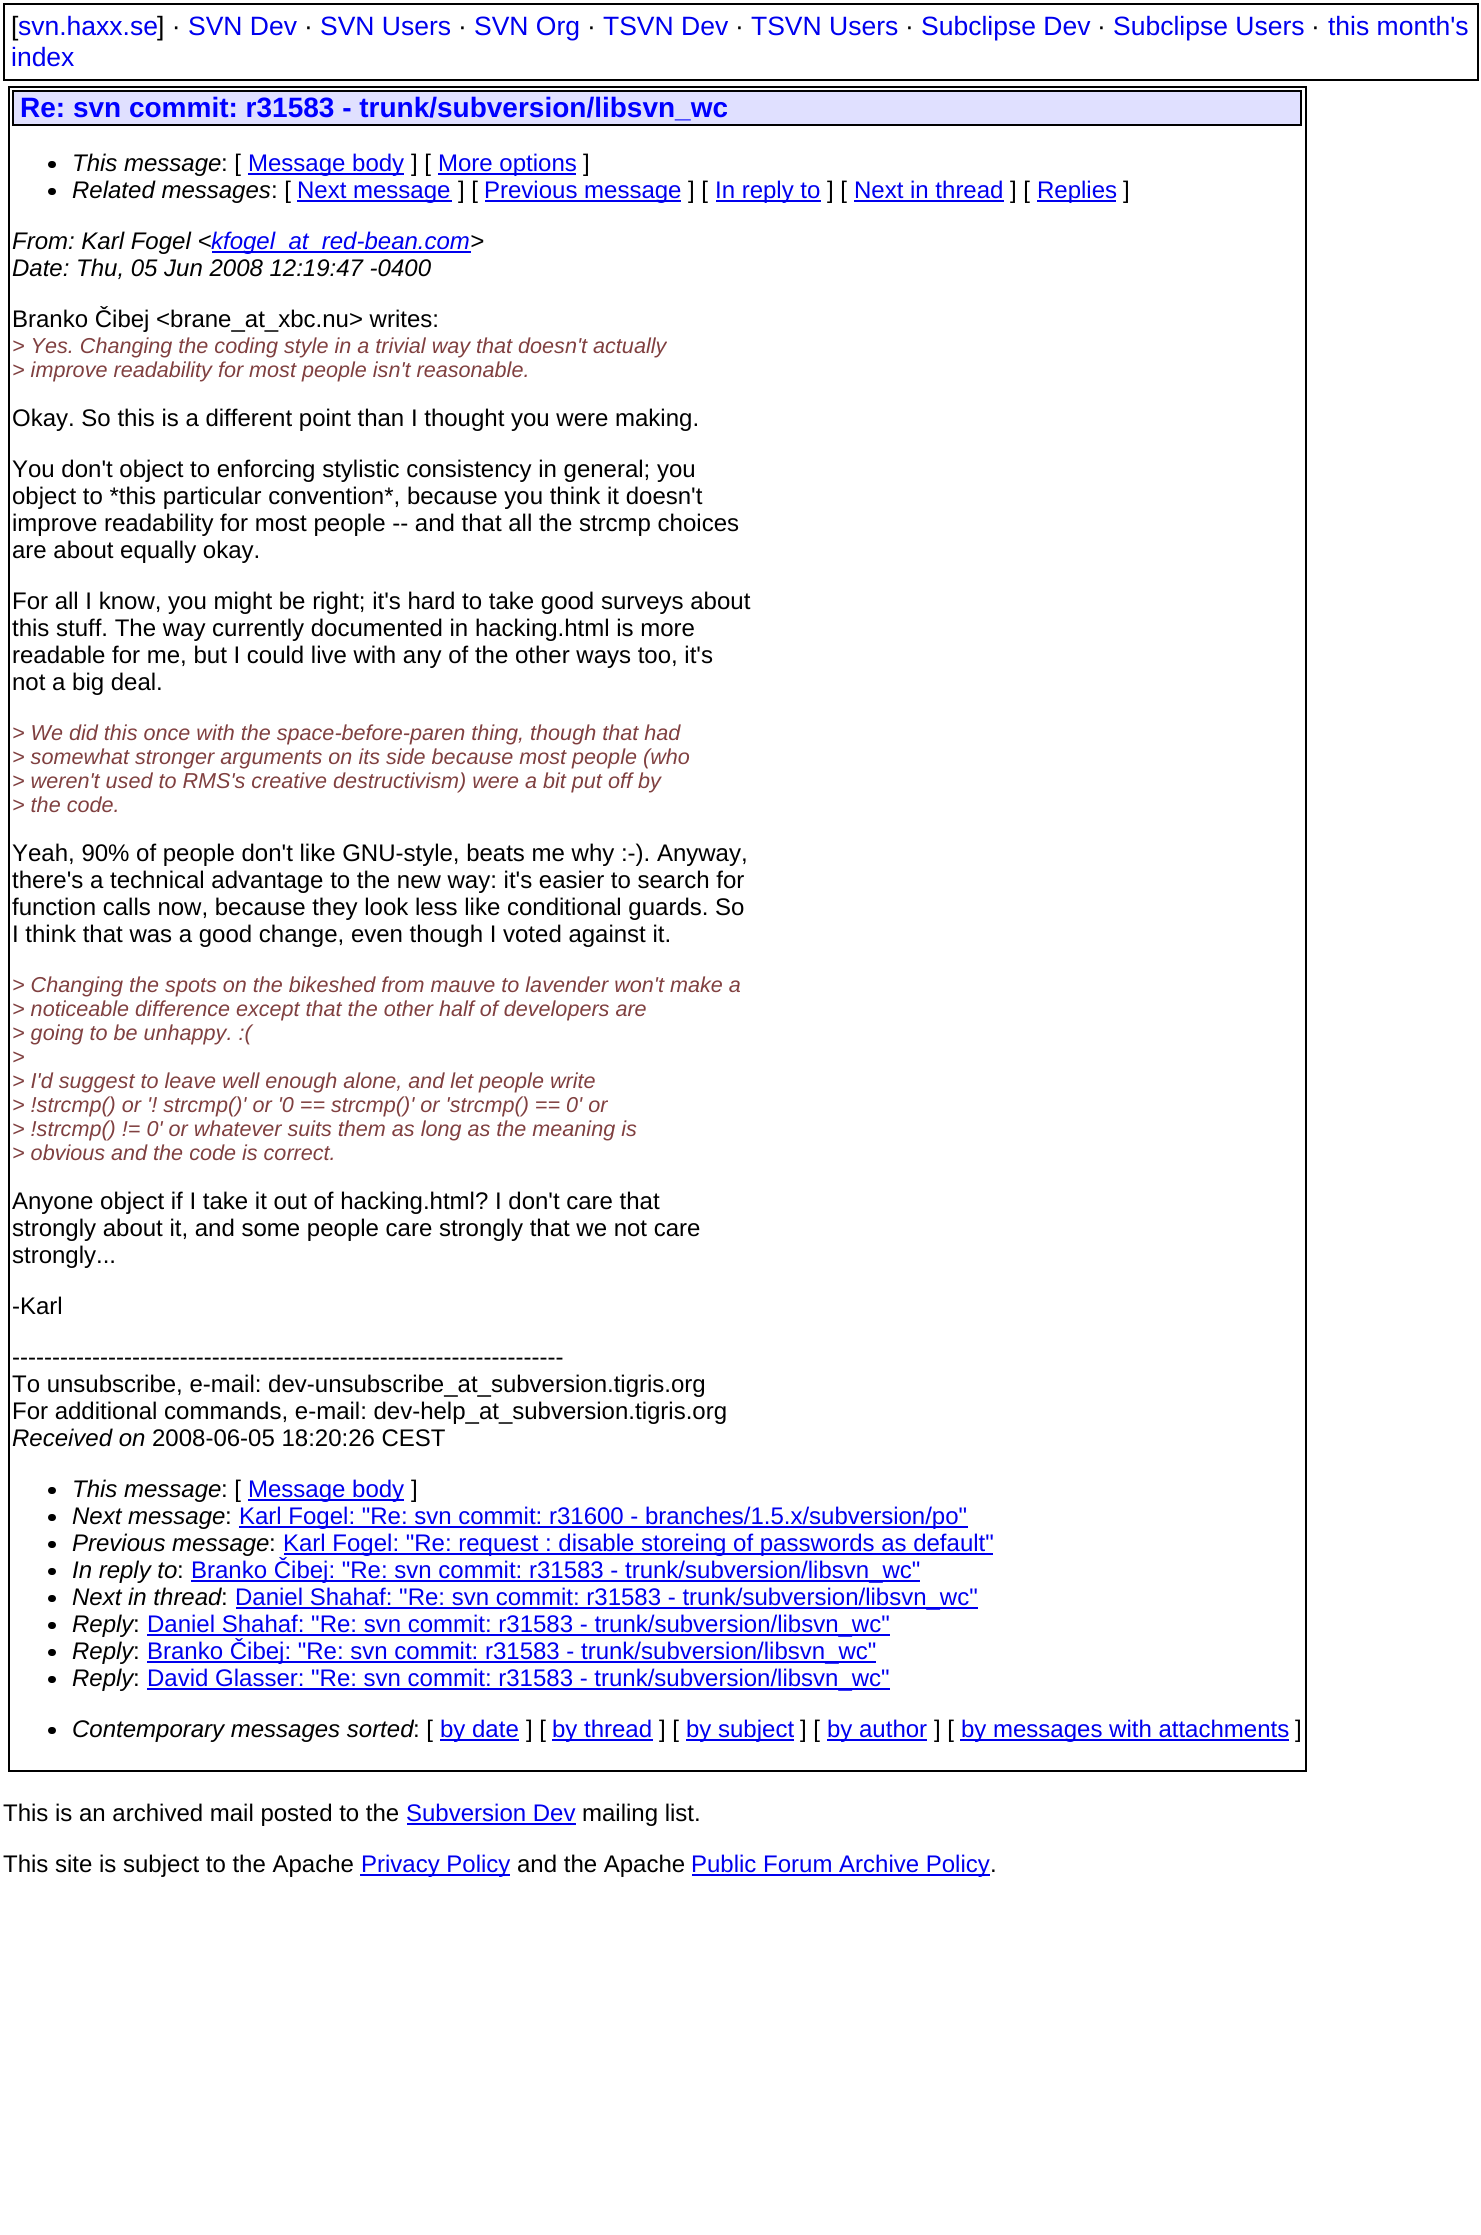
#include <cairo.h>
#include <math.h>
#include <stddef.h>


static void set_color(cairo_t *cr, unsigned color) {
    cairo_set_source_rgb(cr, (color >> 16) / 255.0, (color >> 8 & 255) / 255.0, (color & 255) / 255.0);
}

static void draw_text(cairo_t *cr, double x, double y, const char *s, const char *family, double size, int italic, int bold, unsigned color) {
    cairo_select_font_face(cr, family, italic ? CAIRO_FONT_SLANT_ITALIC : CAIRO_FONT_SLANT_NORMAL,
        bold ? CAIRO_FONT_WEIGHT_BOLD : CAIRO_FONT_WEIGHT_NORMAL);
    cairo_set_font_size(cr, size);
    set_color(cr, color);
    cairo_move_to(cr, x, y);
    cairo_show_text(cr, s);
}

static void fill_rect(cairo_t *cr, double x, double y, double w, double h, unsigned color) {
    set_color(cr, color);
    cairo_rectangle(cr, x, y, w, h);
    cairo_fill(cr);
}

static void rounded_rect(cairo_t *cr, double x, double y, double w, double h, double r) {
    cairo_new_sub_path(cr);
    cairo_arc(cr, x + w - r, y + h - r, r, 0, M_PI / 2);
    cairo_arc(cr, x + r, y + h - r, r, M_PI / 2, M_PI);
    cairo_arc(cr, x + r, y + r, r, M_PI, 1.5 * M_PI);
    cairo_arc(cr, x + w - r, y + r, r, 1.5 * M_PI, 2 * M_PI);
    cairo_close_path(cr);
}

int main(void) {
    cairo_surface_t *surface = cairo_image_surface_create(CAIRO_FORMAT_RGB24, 1481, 2235);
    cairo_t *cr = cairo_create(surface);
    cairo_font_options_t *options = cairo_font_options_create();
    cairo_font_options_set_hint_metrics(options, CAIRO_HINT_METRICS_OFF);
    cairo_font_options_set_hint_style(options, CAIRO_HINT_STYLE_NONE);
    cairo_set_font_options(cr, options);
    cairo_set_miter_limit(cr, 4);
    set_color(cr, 0xFFFFFF);
    cairo_paint(cr);
    cairo_rectangle(cr, 4, 4, 1474, 76);
    set_color(cr, 0x000000);
    cairo_stroke(cr);
    draw_text(cr, 11, 35, "[", "Liberation Sans", 26.5, 0, 0, 0x000000);
    draw_text(cr, 18, 35, "svn.haxx.se", "Liberation Sans", 26.5, 0, 0, 0x0000EE);
    draw_text(cr, 157, 35, "] ·", "Liberation Sans", 26.5, 0, 0, 0x000000);
    draw_text(cr, 188, 35, "SVN Dev", "Liberation Sans", 26.5, 0, 0, 0x0000EE);
    draw_text(cr, 304, 35, "·", "Liberation Sans", 26.5, 0, 0, 0x000000);
    draw_text(cr, 320, 35, "SVN Users", "Liberation Sans", 26.5, 0, 0, 0x0000EE);
    draw_text(cr, 458, 35, "·", "Liberation Sans", 26.5, 0, 0, 0x000000);
    draw_text(cr, 474, 35, "SVN Org", "Liberation Sans", 26.5, 0, 0, 0x0000EE);
    draw_text(cr, 587, 35, "·", "Liberation Sans", 26.5, 0, 0, 0x000000);
    draw_text(cr, 603, 35, "TSVN Dev", "Liberation Sans", 26.5, 0, 0, 0x0000EE);
    draw_text(cr, 735, 35, "·", "Liberation Sans", 26.5, 0, 0, 0x000000);
    draw_text(cr, 751, 35, "TSVN Users", "Liberation Sans", 26.5, 0, 0, 0x0000EE);
    draw_text(cr, 905, 35, "·", "Liberation Sans", 26.5, 0, 0, 0x000000);
    draw_text(cr, 921, 35, "Subclipse Dev", "Liberation Sans", 26.5, 0, 0, 0x0000EE);
    draw_text(cr, 1097, 35, "·", "Liberation Sans", 26.5, 0, 0, 0x000000);
    draw_text(cr, 1113, 35, "Subclipse Users", "Liberation Sans", 26.5, 0, 0, 0x0000EE);
    draw_text(cr, 1311, 35, "·", "Liberation Sans", 26.5, 0, 0, 0x000000);
    draw_text(cr, 1328, 35, "this month's", "Liberation Sans", 26.5, 0, 0, 0x0000EE);
    draw_text(cr, 11, 66, "index", "Liberation Sans", 26.5, 0, 0, 0x0000EE);
    cairo_rectangle(cr, 9, 87, 1297, 1684);
    set_color(cr, 0x000000);
    cairo_stroke(cr);
    set_color(cr, 0xE0E0FF);
    cairo_rectangle(cr, 13, 91, 1288, 34);
    cairo_fill_preserve(cr);
    set_color(cr, 0x000000);
    cairo_stroke(cr);
    draw_text(cr, 20, 117, "Re: svn commit: r31583 - trunk/subversion/libsvn_wc", "Liberation Sans", 28, 0, 1, 0x0000FF);
    set_color(cr, 0x000000);
    rounded_rect(cr, 48, 161, 8, 7, 3.5);
    cairo_fill(cr);
    draw_text(cr, 72, 171, "This message", "Liberation Sans", 24, 1, 0, 0x000000);
    draw_text(cr, 221, 171, ": [", "Liberation Sans", 24, 0, 0, 0x000000);
    fill_rect(cr, 248, 173, 156, 2, 0x0000EE);
    draw_text(cr, 248, 171, "Message body", "Liberation Sans", 24, 0, 0, 0x0000EE);
    draw_text(cr, 411, 171, "] [", "Liberation Sans", 24, 0, 0, 0x000000);
    fill_rect(cr, 438, 173, 138, 2, 0x0000EE);
    draw_text(cr, 438, 171, "More options", "Liberation Sans", 24, 0, 0, 0x0000EE);
    draw_text(cr, 583, 171, "]", "Liberation Sans", 24, 0, 0, 0x000000);
    rounded_rect(cr, 48, 188, 8, 7, 3.5);
    cairo_fill(cr);
    draw_text(cr, 72, 198, "Related messages", "Liberation Sans", 24, 1, 0, 0x000000);
    draw_text(cr, 271, 198, ": [", "Liberation Sans", 24, 0, 0, 0x000000);
    fill_rect(cr, 297, 200, 155, 2, 0x0000EE);
    draw_text(cr, 297, 198, "Next message", "Liberation Sans", 24, 0, 0, 0x0000EE);
    draw_text(cr, 458, 198, "] [", "Liberation Sans", 24, 0, 0, 0x000000);
    fill_rect(cr, 485, 200, 196, 2, 0x0000EE);
    draw_text(cr, 484, 198, "Previous message", "Liberation Sans", 24, 0, 0, 0x0000EE);
    draw_text(cr, 688, 198, "] [", "Liberation Sans", 24, 0, 0, 0x000000);
    fill_rect(cr, 716, 200, 105, 2, 0x0000EE);
    draw_text(cr, 715, 198, "In reply to", "Liberation Sans", 24, 0, 0, 0x0000EE);
    draw_text(cr, 827, 198, "] [", "Liberation Sans", 24, 0, 0, 0x000000);
    draw_text(cr, 854, 198, "Next in thread", "Liberation Sans", 24, 0, 0, 0x0000EE);
    fill_rect(cr, 854, 200, 150, 2, 0x0000EE);
    draw_text(cr, 1010, 198, "] [", "Liberation Sans", 24, 0, 0, 0x000000);
    fill_rect(cr, 1037, 200, 79, 2, 0x0000EE);
    draw_text(cr, 1037, 198, "Replies", "Liberation Sans", 24, 0, 0, 0x0000EE);
    draw_text(cr, 1123, 198, "]", "Liberation Sans", 24, 0, 0, 0x000000);
    draw_text(cr, 12, 249, "From: Karl Fogel <", "Liberation Sans", 24, 1, 0, 0x000000);
    fill_rect(cr, 212, 251, 259, 2, 0x0000EE);
    draw_text(cr, 211, 249, "kfogel_at_red-bean.com", "Liberation Sans", 24, 1, 0, 0x0000EE);
    draw_text(cr, 470, 249, ">", "Liberation Sans", 24, 1, 0, 0x000000);
    draw_text(cr, 12, 276, "Date: Thu, 05 Jun 2008 12:19:47 -0400", "Liberation Sans", 24, 1, 0, 0x000000);
    draw_text(cr, 12, 327, "Branko Čibej <brane_at_xbc.nu> writes:", "Liberation Sans", 24, 0, 0, 0x000000);
    draw_text(cr, 12, 353, "> Yes. Changing the coding style in a trivial way that doesn't actually", "Liberation Sans", 21.6, 1, 0, 0x804040);
    draw_text(cr, 12, 377, "> improve readability for most people isn't reasonable.", "Liberation Sans", 21.6, 1, 0, 0x804040);
    draw_text(cr, 12, 426, "Okay. So this is a different point than I thought you were making.", "Liberation Sans", 24, 0, 0, 0x000000);
    draw_text(cr, 12, 477, "You don't object to enforcing stylistic consistency in general; you", "Liberation Sans", 24, 0, 0, 0x000000);
    draw_text(cr, 12, 504, "object to *this particular convention*, because you think it doesn't", "Liberation Sans", 24, 0, 0, 0x000000);
    draw_text(cr, 12, 531, "improve readability for most people -- and that all the strcmp choices", "Liberation Sans", 24, 0, 0, 0x000000);
    draw_text(cr, 12, 558, "are about equally okay.", "Liberation Sans", 24, 0, 0, 0x000000);
    draw_text(cr, 12, 609, "For all I know, you might be right; it's hard to take good surveys about", "Liberation Sans", 24, 0, 0, 0x000000);
    draw_text(cr, 12, 636, "this stuff. The way currently documented in hacking.html is more", "Liberation Sans", 24, 0, 0, 0x000000);
    draw_text(cr, 12, 663, "readable for me, but I could live with any of the other ways too, it's", "Liberation Sans", 24, 0, 0, 0x000000);
    draw_text(cr, 12, 690, "not a big deal.", "Liberation Sans", 24, 0, 0, 0x000000);
    draw_text(cr, 12, 740, "> We did this once with the space-before-paren thing, though that had", "Liberation Sans", 21.6, 1, 0, 0x804040);
    draw_text(cr, 12, 764, "> somewhat stronger arguments on its side because most people (who", "Liberation Sans", 21.6, 1, 0, 0x804040);
    draw_text(cr, 12, 788, "> weren't used to RMS's creative destructivism) were a bit put off by", "Liberation Sans", 21.6, 1, 0, 0x804040);
    draw_text(cr, 12, 812, "> the code.", "Liberation Sans", 21.6, 1, 0, 0x804040);
    draw_text(cr, 12, 861, "Yeah, 90% of people don't like GNU-style, beats me why :-). Anyway,", "Liberation Sans", 24, 0, 0, 0x000000);
    draw_text(cr, 12, 888, "there's a technical advantage to the new way: it's easier to search for", "Liberation Sans", 24, 0, 0, 0x000000);
    draw_text(cr, 12, 915, "function calls now, because they look less like conditional guards. So", "Liberation Sans", 24, 0, 0, 0x000000);
    draw_text(cr, 12, 942, "I think that was a good change, even though I voted against it.", "Liberation Sans", 24, 0, 0, 0x000000);
    draw_text(cr, 12, 992, "> Changing the spots on the bikeshed from mauve to lavender won't make a", "Liberation Sans", 21.6, 1, 0, 0x804040);
    draw_text(cr, 12, 1016, "> noticeable difference except that the other half of developers are", "Liberation Sans", 21.6, 1, 0, 0x804040);
    draw_text(cr, 12, 1040, "> going to be unhappy. :(", "Liberation Sans", 21.6, 1, 0, 0x804040);
    draw_text(cr, 12, 1064, ">", "Liberation Sans", 21.6, 1, 0, 0x804040);
    draw_text(cr, 12, 1088, "> I'd suggest to leave well enough alone, and let people write", "Liberation Sans", 21.6, 1, 0, 0x804040);
    draw_text(cr, 12, 1112, "> !strcmp() or '! strcmp()' or '0 == strcmp()' or 'strcmp() == 0' or", "Liberation Sans", 21.6, 1, 0, 0x804040);
    draw_text(cr, 12, 1136, "> !strcmp() != 0' or whatever suits them as long as the meaning is", "Liberation Sans", 21.6, 1, 0, 0x804040);
    draw_text(cr, 12, 1160, "> obvious and the code is correct.", "Liberation Sans", 21.6, 1, 0, 0x804040);
    draw_text(cr, 12, 1209, "Anyone object if I take it out of hacking.html? I don't care that", "Liberation Sans", 24, 0, 0, 0x000000);
    draw_text(cr, 12, 1236, "strongly about it, and some people care strongly that we not care", "Liberation Sans", 24, 0, 0, 0x000000);
    draw_text(cr, 12, 1263, "strongly...", "Liberation Sans", 24, 0, 0, 0x000000);
    draw_text(cr, 12, 1314, "-Karl", "Liberation Sans", 24, 0, 0, 0x000000);
    draw_text(cr, 12, 1365, "---------------------------------------------------------------------", "Liberation Sans", 24, 0, 0, 0x000000);
    draw_text(cr, 12, 1392, "To unsubscribe, e-mail: dev-unsubscribe_at_subversion.tigris.org", "Liberation Sans", 24, 0, 0, 0x000000);
    draw_text(cr, 12, 1419, "For additional commands, e-mail: dev-help_at_subversion.tigris.org", "Liberation Sans", 24, 0, 0, 0x000000);
    draw_text(cr, 12, 1446, "Received on", "Liberation Sans", 24, 1, 0, 0x000000);
    draw_text(cr, 152, 1446, "2008-06-05 18:20:26 CEST", "Liberation Sans", 24, 0, 0, 0x000000);
    rounded_rect(cr, 48, 1487, 8, 7, 3.5);
    cairo_fill(cr);
    draw_text(cr, 72, 1497, "This message", "Liberation Sans", 24, 1, 0, 0x000000);
    draw_text(cr, 221, 1497, ": [", "Liberation Sans", 24, 0, 0, 0x000000);
    fill_rect(cr, 248, 1499, 156, 2, 0x0000EE);
    draw_text(cr, 248, 1497, "Message body", "Liberation Sans", 24, 0, 0, 0x0000EE);
    draw_text(cr, 411, 1497, "]", "Liberation Sans", 24, 0, 0, 0x000000);
    rounded_rect(cr, 48, 1514, 8, 7, 3.5);
    cairo_fill(cr);
    draw_text(cr, 72, 1524, "Next message", "Liberation Sans", 24, 1, 0, 0x000000);
    draw_text(cr, 225, 1524, ":", "Liberation Sans", 24, 0, 0, 0x000000);
    fill_rect(cr, 239, 1526, 729, 2, 0x0000EE);
    draw_text(cr, 239, 1524, "Karl Fogel: \"Re: svn commit: r31600 - branches/1.5.x/subversion/po\"", "Liberation Sans", 24, 0, 0, 0x0000EE);
    set_color(cr, 0x000000);
    rounded_rect(cr, 48, 1541, 8, 7, 3.5);
    cairo_fill(cr);
    draw_text(cr, 72, 1551, "Previous message", "Liberation Sans", 24, 1, 0, 0x000000);
    draw_text(cr, 269, 1551, ":", "Liberation Sans", 24, 0, 0, 0x000000);
    fill_rect(cr, 284, 1553, 709, 2, 0x0000EE);
    draw_text(cr, 283, 1551, "Karl Fogel: \"Re: request : disable storeing of passwords as default\"", "Liberation Sans", 24, 0, 0, 0x0000EE);
    set_color(cr, 0x000000);
    rounded_rect(cr, 48, 1568, 8, 7, 3.5);
    cairo_fill(cr);
    draw_text(cr, 72, 1578, "In reply to", "Liberation Sans", 24, 1, 0, 0x000000);
    draw_text(cr, 177, 1578, ":", "Liberation Sans", 24, 0, 0, 0x000000);
    fill_rect(cr, 191, 1580, 729, 2, 0x0000EE);
    draw_text(cr, 191, 1578, "Branko Čibej: \"Re: svn commit: r31583 - trunk/subversion/libsvn_wc\"", "Liberation Sans", 24, 0, 0, 0x0000EE);
    set_color(cr, 0x000000);
    rounded_rect(cr, 48, 1595, 8, 7, 3.5);
    cairo_fill(cr);
    draw_text(cr, 72, 1605, "Next in thread", "Liberation Sans", 24, 1, 0, 0x000000);
    draw_text(cr, 221, 1605, ":", "Liberation Sans", 24, 0, 0, 0x000000);
    fill_rect(cr, 236, 1607, 742, 2, 0x0000EE);
    draw_text(cr, 235, 1605, "Daniel Shahaf: \"Re: svn commit: r31583 - trunk/subversion/libsvn_wc\"", "Liberation Sans", 24, 0, 0, 0x0000EE);
    set_color(cr, 0x000000);
    rounded_rect(cr, 48, 1622, 8, 7, 3.5);
    cairo_fill(cr);
    draw_text(cr, 72, 1632, "Reply", "Liberation Sans", 24, 1, 0, 0x000000);
    draw_text(cr, 133, 1632, ":", "Liberation Sans", 24, 0, 0, 0x000000);
    fill_rect(cr, 147, 1634, 743, 2, 0x0000EE);
    draw_text(cr, 147, 1632, "Daniel Shahaf: \"Re: svn commit: r31583 - trunk/subversion/libsvn_wc\"", "Liberation Sans", 24, 0, 0, 0x0000EE);
    set_color(cr, 0x000000);
    rounded_rect(cr, 48, 1649, 8, 7, 3.5);
    cairo_fill(cr);
    draw_text(cr, 72, 1659, "Reply", "Liberation Sans", 24, 1, 0, 0x000000);
    draw_text(cr, 133, 1659, ":", "Liberation Sans", 24, 0, 0, 0x000000);
    fill_rect(cr, 147, 1661, 729, 2, 0x0000EE);
    draw_text(cr, 147, 1659, "Branko Čibej: \"Re: svn commit: r31583 - trunk/subversion/libsvn_wc\"", "Liberation Sans", 24, 0, 0, 0x0000EE);
    set_color(cr, 0x000000);
    rounded_rect(cr, 48, 1676, 8, 7, 3.5);
    cairo_fill(cr);
    draw_text(cr, 72, 1686, "Reply", "Liberation Sans", 24, 1, 0, 0x000000);
    draw_text(cr, 133, 1686, ":", "Liberation Sans", 24, 0, 0, 0x000000);
    fill_rect(cr, 147, 1688, 743, 2, 0x0000EE);
    draw_text(cr, 147, 1686, "David Glasser: \"Re: svn commit: r31583 - trunk/subversion/libsvn_wc\"", "Liberation Sans", 24, 0, 0, 0x0000EE);
    set_color(cr, 0x000000);
    rounded_rect(cr, 48, 1727, 8, 7, 3.5);
    cairo_fill(cr);
    draw_text(cr, 72, 1737, "Contemporary messages sorted", "Liberation Sans", 24, 1, 0, 0x000000);
    draw_text(cr, 413, 1737, ": [", "Liberation Sans", 24, 0, 0, 0x000000);
    fill_rect(cr, 440, 1739, 79, 2, 0x0000EE);
    draw_text(cr, 440, 1737, "by date", "Liberation Sans", 24, 0, 0, 0x0000EE);
    draw_text(cr, 526, 1737, "] [", "Liberation Sans", 24, 0, 0, 0x000000);
    fill_rect(cr, 552, 1739, 101, 2, 0x0000EE);
    draw_text(cr, 552, 1737, "by thread", "Liberation Sans", 24, 0, 0, 0x0000EE);
    draw_text(cr, 659, 1737, "] [", "Liberation Sans", 24, 0, 0, 0x000000);
    fill_rect(cr, 686, 1739, 108, 2, 0x0000EE);
    draw_text(cr, 686, 1737, "by subject", "Liberation Sans", 24, 0, 0, 0x0000EE);
    draw_text(cr, 800, 1737, "] [", "Liberation Sans", 24, 0, 0, 0x000000);
    fill_rect(cr, 827, 1739, 100, 2, 0x0000EE);
    draw_text(cr, 827, 1737, "by author", "Liberation Sans", 24, 0, 0, 0x0000EE);
    draw_text(cr, 934, 1737, "] [", "Liberation Sans", 24, 0, 0, 0x000000);
    fill_rect(cr, 960, 1739, 329, 2, 0x0000EE);
    draw_text(cr, 961, 1737, "by messages with attachments", "Liberation Sans", 24, 0, 0, 0x0000EE);
    draw_text(cr, 1295, 1737, "]", "Liberation Sans", 24, 0, 0, 0x000000);
    draw_text(cr, 3, 1821, "This is an archived mail posted to the", "Liberation Sans", 24, 0, 0, 0x000000);
    draw_text(cr, 406, 1821, "Subversion Dev", "Liberation Sans", 24, 0, 0, 0x0000EE);
    fill_rect(cr, 407, 1823, 169, 2, 0x0000EE);
    draw_text(cr, 582, 1821, "mailing list.", "Liberation Sans", 24, 0, 0, 0x000000);
    draw_text(cr, 3, 1872, "This site is subject to the Apache", "Liberation Sans", 24, 0, 0, 0x000000);
    fill_rect(cr, 360, 1874, 150, 2, 0x0000EE);
    draw_text(cr, 361, 1872, "Privacy Policy", "Liberation Sans", 24, 0, 0, 0x0000EE);
    draw_text(cr, 517, 1872, "and the Apache", "Liberation Sans", 24, 0, 0, 0x000000);
    fill_rect(cr, 692, 1874, 298, 2, 0x0000EE);
    draw_text(cr, 691, 1872, "Public Forum Archive Policy", "Liberation Sans", 24, 0, 0, 0x0000EE);
    draw_text(cr, 990, 1872, ".", "Liberation Sans", 24, 0, 0, 0x000000);
    cairo_surface_write_to_png(surface, "output.png");
    cairo_font_options_destroy(options);
    cairo_destroy(cr);
    cairo_surface_destroy(surface);
    return 0;
}
